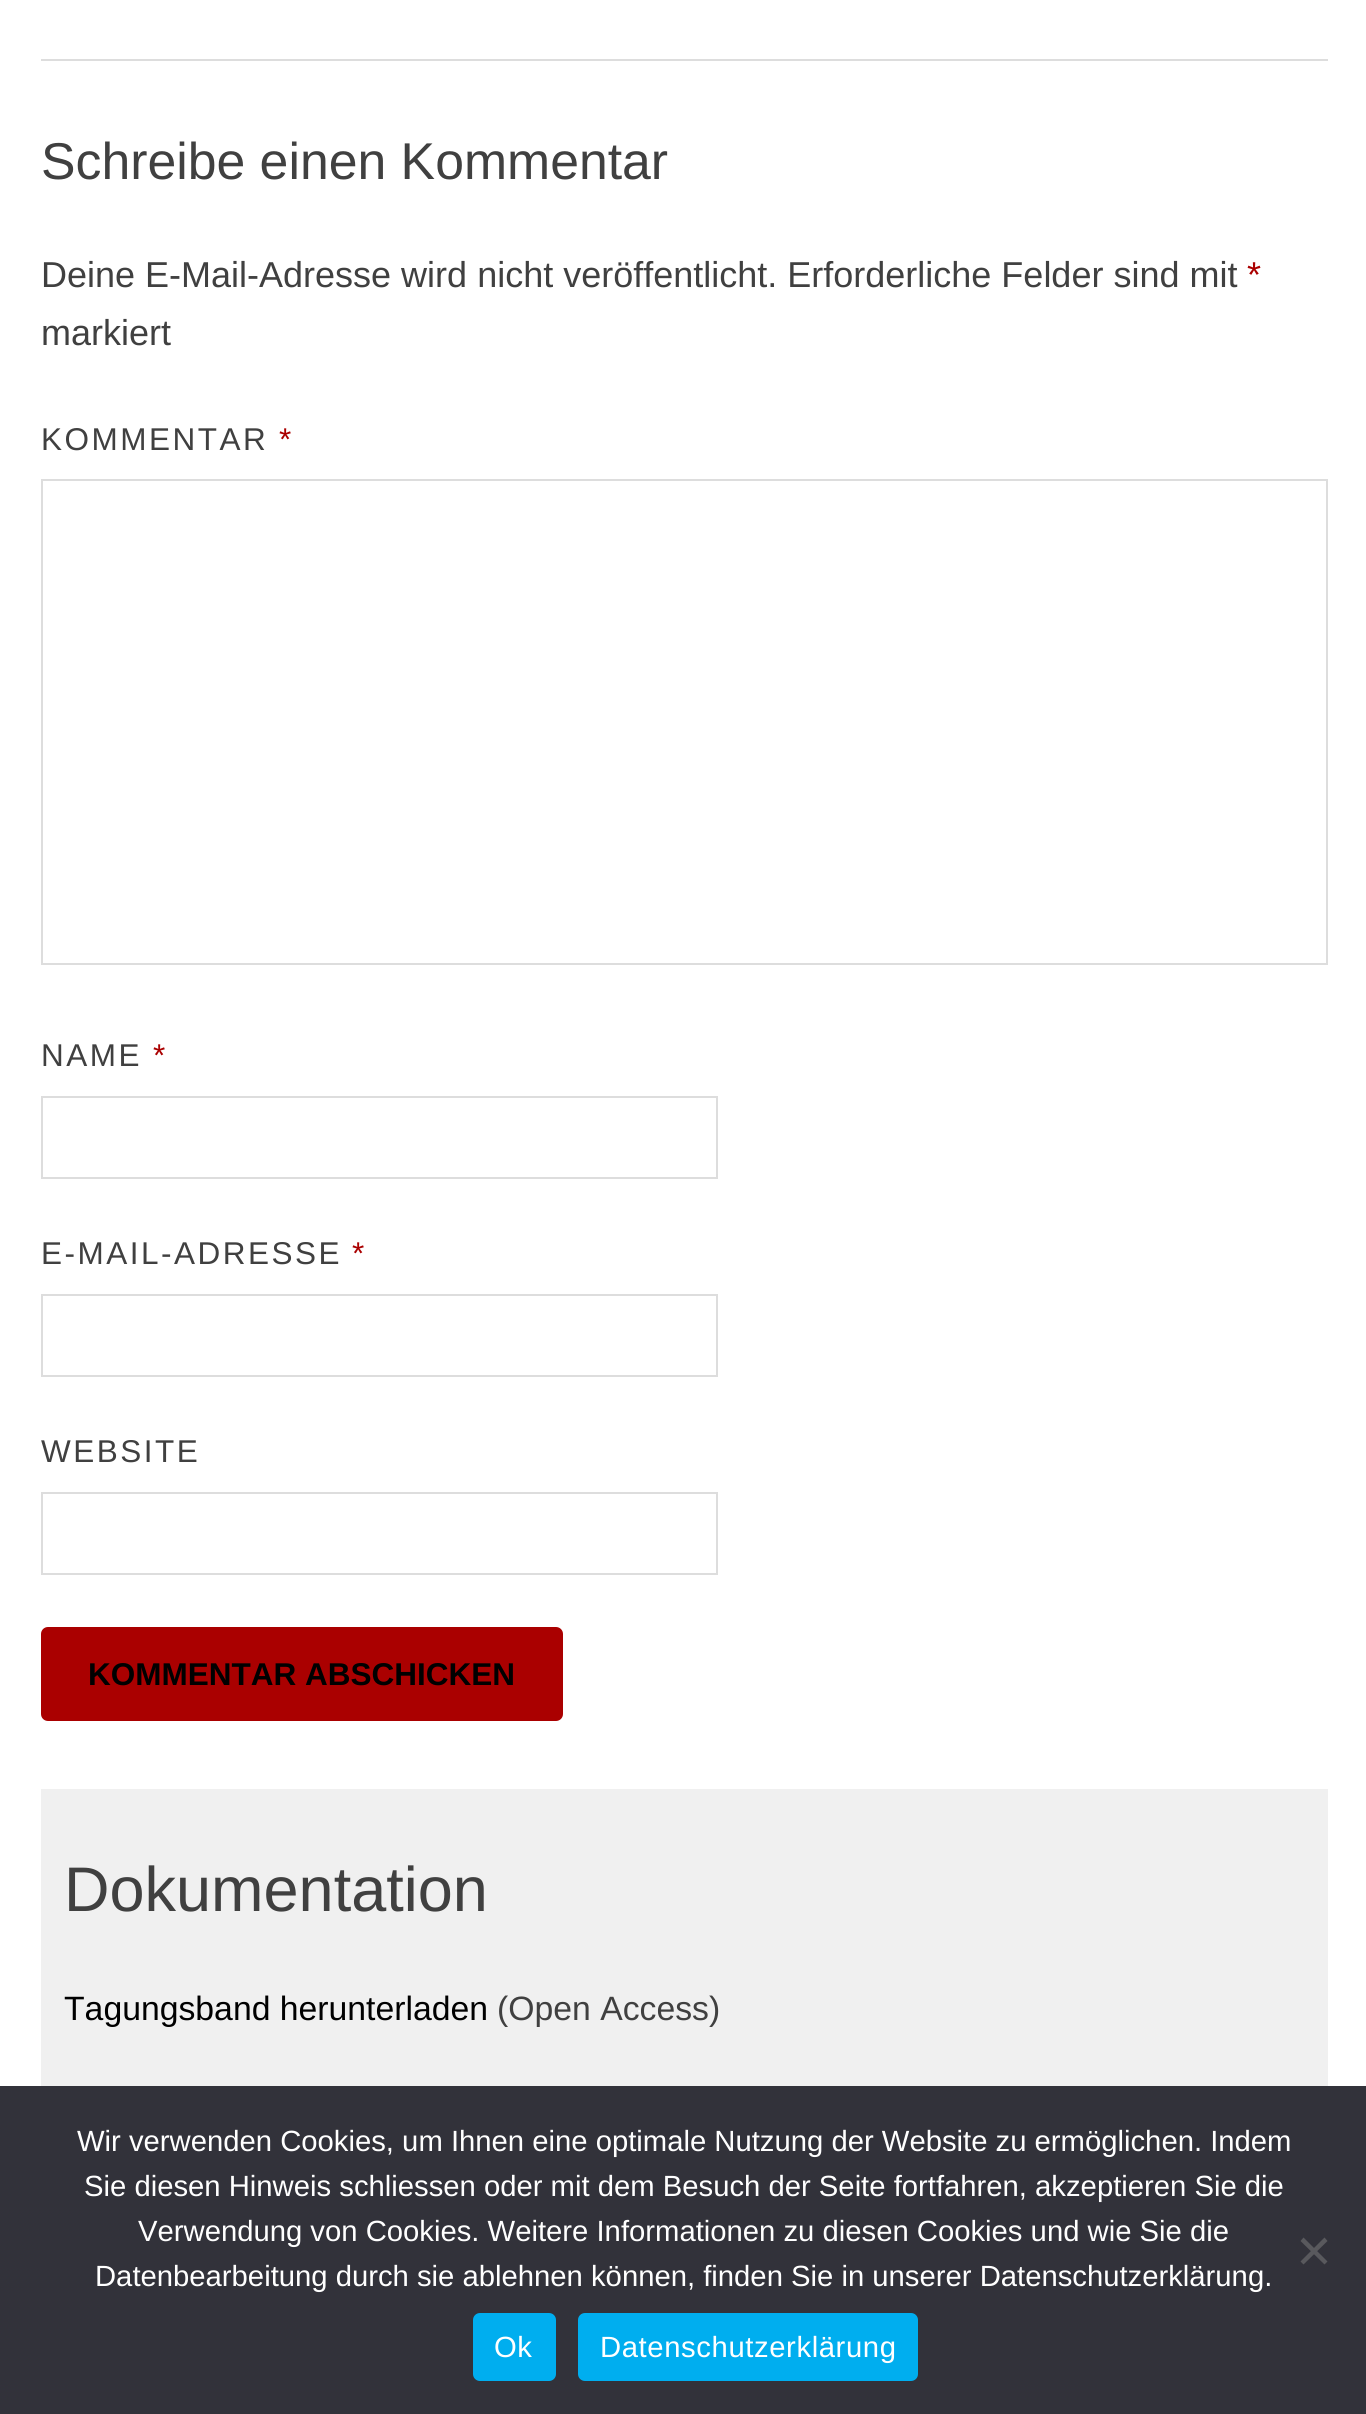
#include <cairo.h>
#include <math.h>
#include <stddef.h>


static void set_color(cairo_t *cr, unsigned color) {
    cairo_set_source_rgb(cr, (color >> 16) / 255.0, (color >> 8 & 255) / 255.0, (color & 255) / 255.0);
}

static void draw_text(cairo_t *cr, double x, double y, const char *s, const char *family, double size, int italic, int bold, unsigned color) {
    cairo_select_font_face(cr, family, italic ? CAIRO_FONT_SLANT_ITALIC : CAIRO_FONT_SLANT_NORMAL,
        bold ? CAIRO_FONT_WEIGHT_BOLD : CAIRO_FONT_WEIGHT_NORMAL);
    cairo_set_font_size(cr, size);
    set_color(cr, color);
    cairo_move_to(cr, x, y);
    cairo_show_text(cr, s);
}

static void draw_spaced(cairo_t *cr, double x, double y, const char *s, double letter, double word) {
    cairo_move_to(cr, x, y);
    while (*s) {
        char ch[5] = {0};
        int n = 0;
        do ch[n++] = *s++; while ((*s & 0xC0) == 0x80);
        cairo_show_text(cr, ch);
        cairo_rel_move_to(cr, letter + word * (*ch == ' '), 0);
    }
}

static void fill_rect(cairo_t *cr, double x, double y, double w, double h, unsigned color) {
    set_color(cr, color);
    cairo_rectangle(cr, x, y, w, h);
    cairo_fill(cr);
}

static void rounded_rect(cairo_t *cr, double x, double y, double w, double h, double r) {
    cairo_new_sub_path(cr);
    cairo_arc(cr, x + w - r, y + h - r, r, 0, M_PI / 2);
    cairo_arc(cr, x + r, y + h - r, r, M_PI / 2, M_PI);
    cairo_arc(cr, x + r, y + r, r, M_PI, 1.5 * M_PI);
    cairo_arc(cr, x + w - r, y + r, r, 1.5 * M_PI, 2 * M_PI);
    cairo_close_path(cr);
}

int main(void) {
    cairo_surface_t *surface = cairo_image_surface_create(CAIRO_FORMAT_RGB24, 1366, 2414);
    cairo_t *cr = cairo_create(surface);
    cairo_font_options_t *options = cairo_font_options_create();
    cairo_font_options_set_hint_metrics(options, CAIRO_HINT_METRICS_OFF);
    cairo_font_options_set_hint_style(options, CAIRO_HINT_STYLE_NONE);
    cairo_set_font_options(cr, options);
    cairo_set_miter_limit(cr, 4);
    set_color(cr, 0xFFFFFF);
    cairo_paint(cr);
    fill_rect(cr, 41, 59, 1287, 2, 0xDDDDDD);
    draw_text(cr, 41, 179, "Schreibe einen Kommentar", "Liberation Sans", 51.75, 0, 0, 0x404040);
    draw_text(cr, 41, 287, "Deine E-Mail-Adresse wird nicht veröffentlicht. Erforderliche Felder sind mit", "Liberation Sans", 36, 0, 0, 0x404040);
    draw_text(cr, 1247, 287, "*", "Liberation Sans", 36, 0, 0, 0xAA0000);
    draw_text(cr, 41, 345, "markiert", "Liberation Sans", 36, 0, 0, 0x404040);
    cairo_set_font_size(cr, 31.5);
    draw_spaced(cr, 41, 450, "KOMMENTAR", 2.5, 0);
    set_color(cr, 0xAA0000);
    draw_spaced(cr, 279, 450, "*", 2.5, 0);
    cairo_rectangle(cr, 42, 480, 1285, 484);
    set_color(cr, 0xDDDDDD);
    cairo_stroke(cr);
    set_color(cr, 0x404040);
    draw_spaced(cr, 41, 1066, "NAME", 2.5, 0);
    set_color(cr, 0xAA0000);
    draw_spaced(cr, 153, 1066, "*", 2.5, 0);
    cairo_rectangle(cr, 42, 1097, 675, 81);
    set_color(cr, 0xDDDDDD);
    cairo_stroke(cr);
    set_color(cr, 0x404040);
    draw_spaced(cr, 41, 1264, "E-MAIL-ADRESSE", 2.5, 0);
    set_color(cr, 0xAA0000);
    draw_spaced(cr, 352, 1264, "*", 2.5, 0);
    cairo_rectangle(cr, 42, 1295, 675, 81);
    set_color(cr, 0xDDDDDD);
    cairo_stroke(cr);
    set_color(cr, 0x404040);
    draw_spaced(cr, 41, 1462, "WEBSITE", 2.5, 0);
    cairo_rectangle(cr, 42, 1493, 675, 81);
    set_color(cr, 0xDDDDDD);
    cairo_stroke(cr);
    set_color(cr, 0xAA0000);
    rounded_rect(cr, 41, 1627, 522, 94, 7);
    cairo_fill(cr);
    draw_text(cr, 88, 1685, "KOMMENTAR ABSCHICKEN", "Liberation Sans", 31.5, 0, 1, 0x000000);
    fill_rect(cr, 41, 1789, 1287, 297, 0xF0F0F0);
    draw_text(cr, 64, 1911, "Dokumentation", "Liberation Sans", 63, 0, 0, 0x404040);
    draw_text(cr, 64, 2020, "Tagungsband herunterladen", "Liberation Sans", 33.75, 0, 0, 0x000000);
    draw_text(cr, 497, 2020, "(Open Access)", "Liberation Sans", 33.75, 0, 0, 0x404040);
    fill_rect(cr, 0, 2086, 1366, 328, 0x32323A);
    draw_text(cr, 77, 2151, "Wir verwenden Cookies, um Ihnen eine optimale Nutzung der Website zu ermöglichen. Indem", "Liberation Sans", 29.25, 0, 0, 0xFFFFFF);
    draw_text(cr, 84, 2196, "Sie diesen Hinweis schliessen oder mit dem Besuch der Seite fortfahren, akzeptieren Sie die", "Liberation Sans", 29.25, 0, 0, 0xFFFFFF);
    draw_text(cr, 138, 2241, "Verwendung von Cookies. Weitere Informationen zu diesen Cookies und wie Sie die", "Liberation Sans", 29.25, 0, 0, 0xFFFFFF);
    draw_text(cr, 95, 2286, "Datenbearbeitung durch sie ablehnen können, finden Sie in unserer Datenschutzerklärung.", "Liberation Sans", 29.25, 0, 0, 0xFFFFFF);
    set_color(cr, 0x59595D);
    cairo_new_path(cr);
    cairo_move_to(cr, 1324.5, 2237.5);
    cairo_line_to(cr, 1327.5, 2241);
    cairo_line_to(cr, 1303.5, 2264.5);
    cairo_line_to(cr, 1300.5, 2261.5);
    cairo_close_path(cr);
    cairo_fill(cr);
    cairo_new_path(cr);
    cairo_move_to(cr, 1300.5, 2241);
    cairo_line_to(cr, 1303.5, 2237.5);
    cairo_line_to(cr, 1327.5, 2261.5);
    cairo_line_to(cr, 1324.5, 2264.5);
    cairo_close_path(cr);
    cairo_fill(cr);
    set_color(cr, 0x00AEEF);
    rounded_rect(cr, 473, 2313, 83, 68, 7);
    cairo_fill(cr);
    set_color(cr, 0xFFFFFF);
    draw_spaced(cr, 494, 2357, "Ok", 0.6, 0);
    set_color(cr, 0x00AEEF);
    rounded_rect(cr, 578, 2313, 340, 68, 7);
    cairo_fill(cr);
    set_color(cr, 0xFFFFFF);
    draw_spaced(cr, 600, 2357, "Datenschutzerklärung", 0.6, 0);
    cairo_surface_write_to_png(surface, "output.png");
    cairo_font_options_destroy(options);
    cairo_destroy(cr);
    cairo_surface_destroy(surface);
    return 0;
}
